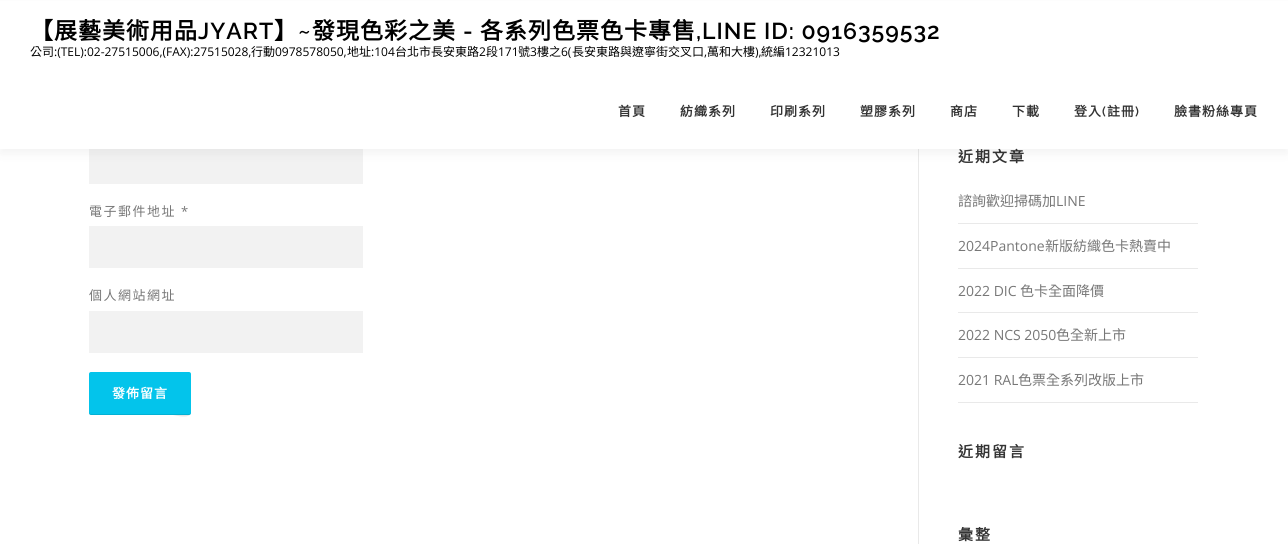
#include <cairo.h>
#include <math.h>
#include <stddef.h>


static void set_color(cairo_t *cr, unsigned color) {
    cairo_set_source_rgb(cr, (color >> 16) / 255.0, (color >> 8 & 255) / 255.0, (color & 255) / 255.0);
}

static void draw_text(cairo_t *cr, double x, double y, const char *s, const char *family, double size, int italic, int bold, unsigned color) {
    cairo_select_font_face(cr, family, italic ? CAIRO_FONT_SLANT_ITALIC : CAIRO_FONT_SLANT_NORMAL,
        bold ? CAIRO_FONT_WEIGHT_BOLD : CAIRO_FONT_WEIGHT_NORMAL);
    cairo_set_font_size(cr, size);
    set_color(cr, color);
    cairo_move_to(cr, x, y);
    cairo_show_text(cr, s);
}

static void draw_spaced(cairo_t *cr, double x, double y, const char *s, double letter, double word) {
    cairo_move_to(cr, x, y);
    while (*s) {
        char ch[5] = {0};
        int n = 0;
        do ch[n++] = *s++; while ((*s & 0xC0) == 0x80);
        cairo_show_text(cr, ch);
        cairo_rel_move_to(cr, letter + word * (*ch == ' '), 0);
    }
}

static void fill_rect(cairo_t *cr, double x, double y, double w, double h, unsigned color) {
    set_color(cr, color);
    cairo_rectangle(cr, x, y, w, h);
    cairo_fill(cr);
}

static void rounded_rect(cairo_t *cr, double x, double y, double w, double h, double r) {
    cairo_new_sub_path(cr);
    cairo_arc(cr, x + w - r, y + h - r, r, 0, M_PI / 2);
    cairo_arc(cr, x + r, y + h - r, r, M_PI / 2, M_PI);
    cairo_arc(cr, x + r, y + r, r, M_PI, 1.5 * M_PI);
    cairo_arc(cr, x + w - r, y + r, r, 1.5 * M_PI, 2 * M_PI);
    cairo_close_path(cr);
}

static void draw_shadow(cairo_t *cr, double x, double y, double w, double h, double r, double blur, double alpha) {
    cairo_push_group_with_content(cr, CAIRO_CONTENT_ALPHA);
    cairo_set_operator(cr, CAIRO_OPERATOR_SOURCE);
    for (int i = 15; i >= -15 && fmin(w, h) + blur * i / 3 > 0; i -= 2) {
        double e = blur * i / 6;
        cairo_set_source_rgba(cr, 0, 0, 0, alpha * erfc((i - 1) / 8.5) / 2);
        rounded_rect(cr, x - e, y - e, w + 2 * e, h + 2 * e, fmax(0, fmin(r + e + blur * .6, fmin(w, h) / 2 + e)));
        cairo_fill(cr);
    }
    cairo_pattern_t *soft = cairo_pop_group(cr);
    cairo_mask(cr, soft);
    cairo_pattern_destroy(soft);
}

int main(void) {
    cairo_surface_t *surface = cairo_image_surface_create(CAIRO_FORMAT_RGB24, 1288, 544);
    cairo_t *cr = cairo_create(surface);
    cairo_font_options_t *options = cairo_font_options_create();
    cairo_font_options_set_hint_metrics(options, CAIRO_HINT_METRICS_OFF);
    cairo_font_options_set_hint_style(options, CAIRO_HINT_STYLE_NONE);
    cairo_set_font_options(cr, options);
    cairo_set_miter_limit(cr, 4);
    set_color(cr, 0xFFFFFF);
    cairo_paint(cr);
    fill_rect(cr, 89, 149, 274, 35, 0xF2F2F2);
    fill_rect(cr, 918, 149, 1, 395, 0xE9E9E9);
    set_color(cr, 0x323232);
    draw_shadow(cr, 0, 5, 1288, 149, 0, 5, 0.06);
    fill_rect(cr, 0, 1, 1288, 148, 0xFFFFFF);
    cairo_select_font_face(cr, "Noto Sans CJK TC", CAIRO_FONT_SLANT_NORMAL, CAIRO_FONT_WEIGHT_BOLD);
    cairo_set_font_size(cr, 23);
    set_color(cr, 0x000000);
    draw_spaced(cr, 30, 39, "【展藝美術用品", 1, 0);
    cairo_select_font_face(cr, "Raleway SemiBold", CAIRO_FONT_SLANT_NORMAL, CAIRO_FONT_WEIGHT_NORMAL);
    draw_spaced(cr, 198, 39, "JYART", 1, 0);
    cairo_select_font_face(cr, "Noto Sans CJK TC", CAIRO_FONT_SLANT_NORMAL, CAIRO_FONT_WEIGHT_BOLD);
    draw_spaced(cr, 274, 39, "】", 1, 0);
    cairo_select_font_face(cr, "Raleway SemiBold", CAIRO_FONT_SLANT_NORMAL, CAIRO_FONT_WEIGHT_NORMAL);
    draw_spaced(cr, 298, 39, "~", 1, 0);
    cairo_select_font_face(cr, "Noto Sans CJK TC", CAIRO_FONT_SLANT_NORMAL, CAIRO_FONT_WEIGHT_BOLD);
    draw_spaced(cr, 312, 39, "發現色彩之美", 1, 0);
    cairo_select_font_face(cr, "Raleway SemiBold", CAIRO_FONT_SLANT_NORMAL, CAIRO_FONT_WEIGHT_NORMAL);
    draw_spaced(cr, 463, 39, "-", 1, 0);
    cairo_select_font_face(cr, "Noto Sans CJK TC", CAIRO_FONT_SLANT_NORMAL, CAIRO_FONT_WEIGHT_BOLD);
    draw_spaced(cr, 480, 39, "各系列色票色卡專售", 1, 0);
    cairo_select_font_face(cr, "Raleway SemiBold", CAIRO_FONT_SLANT_NORMAL, CAIRO_FONT_WEIGHT_NORMAL);
    draw_spaced(cr, 696, 39, ",LINE ID: 0916359532", 1, 0);
    draw_text(cr, 30, 56, "公司", "Noto Sans CJK TC", 12, 0, 0, 0x000000);
    draw_text(cr, 54, 56, ":(TEL):02-27515006,(FAX):27515028,", "Open Sans", 12, 0, 0, 0x000000);
    draw_text(cr, 251, 56, "行動", "Noto Sans CJK TC", 12, 0, 0, 0x000000);
    draw_text(cr, 275, 56, "0978578050,", "Open Sans", 12, 0, 0, 0x000000);
    draw_text(cr, 347, 56, "地址", "Noto Sans CJK TC", 12, 0, 0, 0x000000);
    draw_text(cr, 371, 56, ":104", "Open Sans", 12, 0, 0, 0x000000);
    draw_text(cr, 395, 56, "台北市長安東路", "Noto Sans CJK TC", 12, 0, 0, 0x000000);
    draw_text(cr, 479, 56, "2", "Open Sans", 12, 0, 0, 0x000000);
    draw_text(cr, 486, 56, "段", "Noto Sans CJK TC", 12, 0, 0, 0x000000);
    draw_text(cr, 498, 56, "171", "Open Sans", 12, 0, 0, 0x000000);
    draw_text(cr, 518, 56, "號", "Noto Sans CJK TC", 12, 0, 0, 0x000000);
    draw_text(cr, 530, 56, "3", "Open Sans", 12, 0, 0, 0x000000);
    draw_text(cr, 537, 56, "樓之", "Noto Sans CJK TC", 12, 0, 0, 0x000000);
    draw_text(cr, 561, 56, "6(", "Open Sans", 12, 0, 0, 0x000000);
    draw_text(cr, 572, 56, "長安東路與遼寧街交叉口", "Noto Sans CJK TC", 12, 0, 0, 0x000000);
    draw_text(cr, 704, 56, ",", "Open Sans", 12, 0, 0, 0x000000);
    draw_text(cr, 707, 56, "萬和大樓", "Noto Sans CJK TC", 12, 0, 0, 0x000000);
    draw_text(cr, 755, 56, "),", "Open Sans", 12, 0, 0, 0x000000);
    draw_text(cr, 761, 56, "統編", "Noto Sans CJK TC", 12, 0, 0, 0x000000);
    draw_text(cr, 785, 56, "12321013", "Open Sans", 12, 0, 0, 0x000000);
    cairo_select_font_face(cr, "Noto Sans CJK TC", CAIRO_FONT_SLANT_NORMAL, CAIRO_FONT_WEIGHT_BOLD);
    cairo_set_font_size(cr, 13);
    set_color(cr, 0x333333);
    draw_spaced(cr, 618, 116, "首頁", 1, 0);
    draw_spaced(cr, 680, 116, "紡織系列", 1, 0);
    draw_spaced(cr, 770, 116, "印刷系列", 1, 0);
    draw_spaced(cr, 860, 116, "塑膠系列", 1, 0);
    draw_spaced(cr, 950, 116, "商店", 1, 0);
    draw_spaced(cr, 1012, 116, "下載", 1, 0);
    draw_spaced(cr, 1074, 116, "登入", 1, 0);
    cairo_select_font_face(cr, "Raleway SemiBold", CAIRO_FONT_SLANT_NORMAL, CAIRO_FONT_WEIGHT_NORMAL);
    draw_spaced(cr, 1102, 116, "(", 1, 0);
    cairo_select_font_face(cr, "Noto Sans CJK TC", CAIRO_FONT_SLANT_NORMAL, CAIRO_FONT_WEIGHT_BOLD);
    draw_spaced(cr, 1107, 116, "註冊", 1, 0);
    cairo_select_font_face(cr, "Raleway SemiBold", CAIRO_FONT_SLANT_NORMAL, CAIRO_FONT_WEIGHT_NORMAL);
    draw_spaced(cr, 1135, 116, ")", 1, 0);
    cairo_select_font_face(cr, "Noto Sans CJK TC", CAIRO_FONT_SLANT_NORMAL, CAIRO_FONT_WEIGHT_BOLD);
    draw_spaced(cr, 1174, 116, "臉書粉絲專頁", 1, 0);
    cairo_select_font_face(cr, "Noto Sans CJK TC", CAIRO_FONT_SLANT_NORMAL, CAIRO_FONT_WEIGHT_NORMAL);
    set_color(cr, 0x777777);
    draw_spaced(cr, 89, 216, "電子郵件地址", 1.5, 0);
    cairo_select_font_face(cr, "Open Sans", CAIRO_FONT_SLANT_NORMAL, CAIRO_FONT_WEIGHT_NORMAL);
    draw_spaced(cr, 181, 216, "*", 1.5, 0);
    fill_rect(cr, 89, 226, 274, 42, 0xF2F2F2);
    cairo_select_font_face(cr, "Noto Sans CJK TC", CAIRO_FONT_SLANT_NORMAL, CAIRO_FONT_WEIGHT_NORMAL);
    set_color(cr, 0x777777);
    draw_spaced(cr, 89, 300, "個人網站網址", 1.5, 0);
    fill_rect(cr, 89, 311, 274, 42, 0xF2F2F2);
    set_color(cr, 0x03C4EB);
    rounded_rect(cr, 89, 372, 102, 43, 2);
    cairo_fill(cr);
    cairo_set_source_rgba(cr, 0, 0, 0, 0.1);
    cairo_new_path(cr);
    cairo_move_to(cr, 89, 412);
    cairo_curve_to(cr, 89, 413, 89, 415, 91, 415);
    cairo_line_to(cr, 173, 415);
    cairo_curve_to(cr, 174, 415, 191, 420, 191, 412);
    cairo_curve_to(cr, 191, 413, 190, 414, 189, 414);
    cairo_line_to(cr, 91, 414);
    cairo_curve_to(cr, 90, 414, 89, 413, 89, 412);
    cairo_close_path(cr);
    cairo_fill(cr);
    cairo_select_font_face(cr, "Noto Sans CJK TC", CAIRO_FONT_SLANT_NORMAL, CAIRO_FONT_WEIGHT_BOLD);
    set_color(cr, 0xFFFFFF);
    draw_spaced(cr, 112, 398, "發佈留言", 1, 0);
    cairo_set_font_size(cr, 15);
    set_color(cr, 0x333333);
    draw_spaced(cr, 958, 162, "近期文章", 2, 0);
    fill_rect(cr, 958, 223, 240, 1, 0xE9E9E9);
    draw_text(cr, 958, 206, "諮詢歡迎掃碼加", "Noto Sans CJK TC", 14, 0, 0, 0x777777);
    draw_text(cr, 1056, 206, "LINE", "Open Sans", 14, 0, 0, 0x777777);
    fill_rect(cr, 958, 268, 240, 1, 0xE9E9E9);
    draw_text(cr, 958, 251, "2024Pantone", "Open Sans", 14, 0, 0, 0x777777);
    draw_text(cr, 1045, 251, "新版紡織色卡熱賣中", "Noto Sans CJK TC", 14, 0, 0, 0x777777);
    fill_rect(cr, 958, 312, 240, 1, 0xE9E9E9);
    draw_text(cr, 958, 296, "2022 DIC", "Open Sans", 14, 0, 0, 0x777777);
    draw_text(cr, 1020, 296, "色卡全面降價", "Noto Sans CJK TC", 14, 0, 0, 0x777777);
    fill_rect(cr, 958, 357, 240, 1, 0xE9E9E9);
    draw_text(cr, 958, 340, "2022 NCS 2050", "Open Sans", 14, 0, 0, 0x777777);
    draw_text(cr, 1056, 340, "色全新上市", "Noto Sans CJK TC", 14, 0, 0, 0x777777);
    fill_rect(cr, 958, 402, 240, 1, 0xE9E9E9);
    draw_text(cr, 958, 385, "2021 RAL", "Open Sans", 14, 0, 0, 0x777777);
    draw_text(cr, 1018, 385, "色票全系列改版上市", "Noto Sans CJK TC", 14, 0, 0, 0x777777);
    cairo_select_font_face(cr, "Noto Sans CJK TC", CAIRO_FONT_SLANT_NORMAL, CAIRO_FONT_WEIGHT_BOLD);
    cairo_set_font_size(cr, 15);
    set_color(cr, 0x333333);
    draw_spaced(cr, 958, 457, "近期留言", 2, 0);
    draw_spaced(cr, 958, 540, "彙整", 2, 0);
    cairo_surface_write_to_png(surface, "output.png");
    cairo_font_options_destroy(options);
    cairo_destroy(cr);
    cairo_surface_destroy(surface);
    return 0;
}
